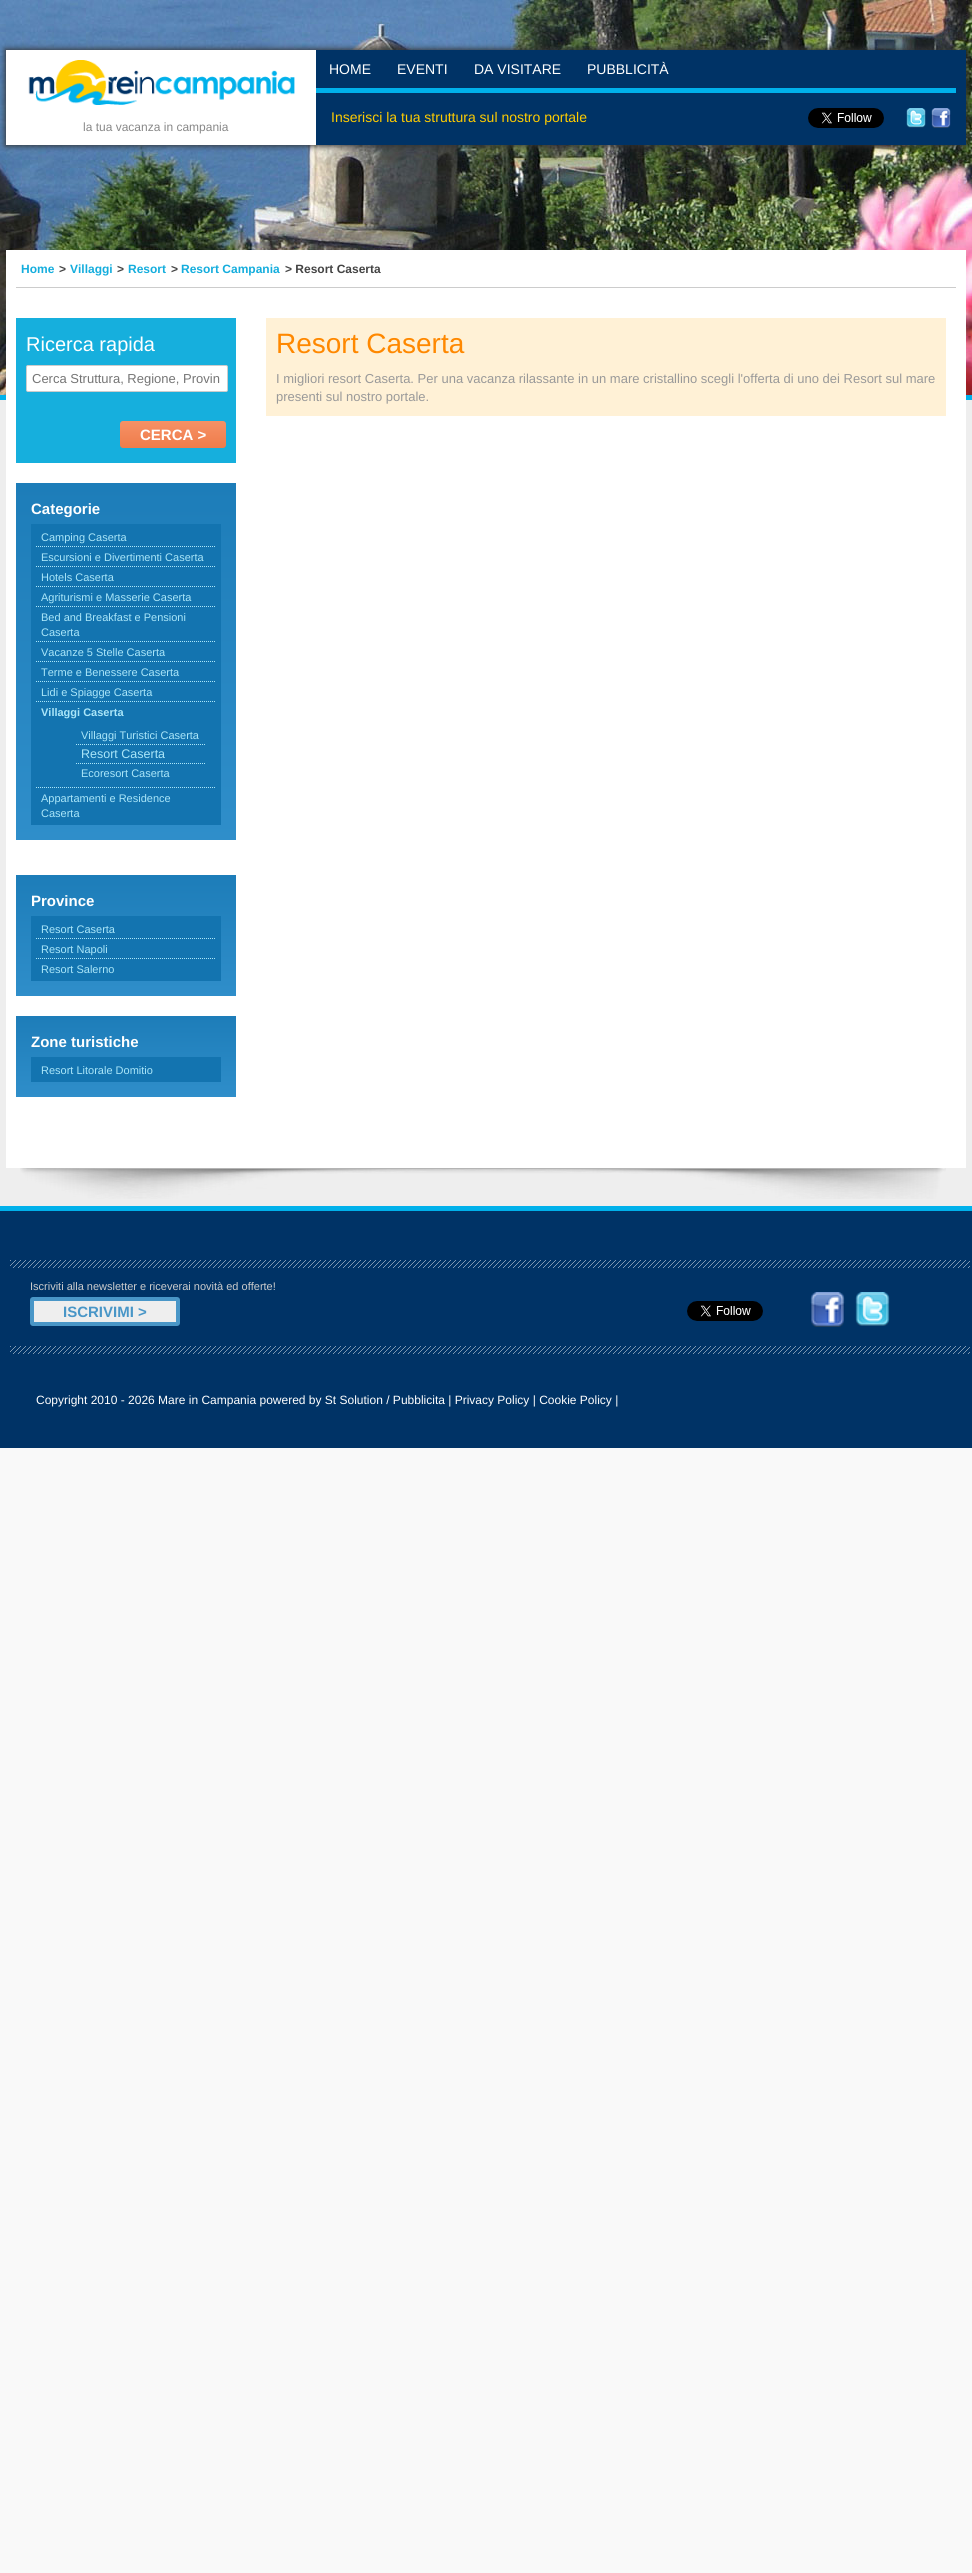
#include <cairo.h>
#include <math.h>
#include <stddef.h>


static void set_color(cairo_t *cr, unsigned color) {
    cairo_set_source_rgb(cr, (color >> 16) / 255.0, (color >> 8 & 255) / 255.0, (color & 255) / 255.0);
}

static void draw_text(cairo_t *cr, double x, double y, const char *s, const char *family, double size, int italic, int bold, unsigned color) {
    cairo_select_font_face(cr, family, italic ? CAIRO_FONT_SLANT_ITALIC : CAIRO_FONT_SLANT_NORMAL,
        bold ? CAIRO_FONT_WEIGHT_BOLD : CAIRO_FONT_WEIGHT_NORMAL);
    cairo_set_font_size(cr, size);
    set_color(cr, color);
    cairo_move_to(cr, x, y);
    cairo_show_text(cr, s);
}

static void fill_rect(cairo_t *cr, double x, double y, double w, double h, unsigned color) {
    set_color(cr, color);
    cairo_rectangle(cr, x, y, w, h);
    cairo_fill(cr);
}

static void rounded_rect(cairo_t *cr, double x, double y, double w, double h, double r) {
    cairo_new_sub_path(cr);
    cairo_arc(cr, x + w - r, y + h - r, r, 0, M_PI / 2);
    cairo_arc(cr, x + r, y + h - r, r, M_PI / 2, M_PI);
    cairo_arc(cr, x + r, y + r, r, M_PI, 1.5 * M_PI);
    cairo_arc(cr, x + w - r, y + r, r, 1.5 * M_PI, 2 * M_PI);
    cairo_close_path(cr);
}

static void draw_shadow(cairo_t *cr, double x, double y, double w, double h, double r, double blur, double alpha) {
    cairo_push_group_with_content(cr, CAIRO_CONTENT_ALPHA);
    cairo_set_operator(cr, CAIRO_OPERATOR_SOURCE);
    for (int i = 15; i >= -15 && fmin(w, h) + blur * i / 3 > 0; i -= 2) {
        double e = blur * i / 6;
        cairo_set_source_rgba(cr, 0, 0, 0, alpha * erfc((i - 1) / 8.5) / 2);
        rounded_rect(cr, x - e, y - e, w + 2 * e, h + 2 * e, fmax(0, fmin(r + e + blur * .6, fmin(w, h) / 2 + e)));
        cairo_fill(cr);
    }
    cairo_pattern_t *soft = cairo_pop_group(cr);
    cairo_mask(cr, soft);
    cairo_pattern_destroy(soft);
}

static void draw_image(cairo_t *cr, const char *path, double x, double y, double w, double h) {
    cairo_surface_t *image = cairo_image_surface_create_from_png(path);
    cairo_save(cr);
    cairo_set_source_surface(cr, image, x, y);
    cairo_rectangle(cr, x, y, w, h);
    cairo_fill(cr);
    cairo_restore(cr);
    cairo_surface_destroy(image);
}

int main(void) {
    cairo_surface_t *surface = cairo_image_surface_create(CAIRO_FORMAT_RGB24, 972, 2573);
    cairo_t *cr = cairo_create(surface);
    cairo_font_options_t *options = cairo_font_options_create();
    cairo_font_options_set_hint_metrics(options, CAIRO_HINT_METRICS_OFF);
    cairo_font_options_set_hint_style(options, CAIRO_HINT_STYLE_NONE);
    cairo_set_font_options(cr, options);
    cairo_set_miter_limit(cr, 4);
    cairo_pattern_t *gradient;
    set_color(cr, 0xF9F9F9);
    cairo_paint(cr);
    draw_image(cr, "assets/img1.png", 0, 0, 972, 395);
    set_color(cr, 0x333333);
    draw_shadow(cr, 5, 49, 962, 97, 0, 3, 1);
    fill_rect(cr, 6, 50, 310, 95, 0xFFFFFF);
    fill_rect(cr, 316, 50, 650, 95, 0x003366);
    draw_text(cr, 329, 74, "HOME", "Liberation Sans", 14, 0, 0, 0xFFFFFF);
    draw_text(cr, 397, 74, "EVENTI", "Liberation Sans", 14, 0, 0, 0xFFFFFF);
    draw_text(cr, 474, 74, "DA VISITARE", "Liberation Sans", 14, 0, 0, 0xFFFFFF);
    draw_text(cr, 587, 74, "PUBBLICITÀ", "Liberation Sans", 14, 0, 0, 0xFFFFFF);
    fill_rect(cr, 316, 88, 640, 5, 0x00B1EB);
    draw_text(cr, 331, 122, "Inserisci la tua struttura sul nostro portale", "Liberation Sans", 14, 0, 0, 0xFFCC00);
    draw_image(cr, "assets/img2.png", 808, 108, 76, 20);
    draw_image(cr, "assets/img3.png", 906, 108, 20, 20);
    draw_image(cr, "assets/img4.png", 931, 108, 20, 20);
    draw_image(cr, "assets/img5.png", 28, 60, 267, 45);
    draw_text(cr, 83, 131, "la tua vacanza in campania", "Liberation Sans", 12, 0, 0, 0x888888);
    fill_rect(cr, 0, 400, 972, 806, 0xEEEEEE);
    fill_rect(cr, 0, 395, 972, 5, 0x00B1EB);
    fill_rect(cr, 6, 250, 960, 918, 0xFFFFFF);
    fill_rect(cr, 16, 287, 940, 1, 0xCCCCCC);
    draw_text(cr, 21, 273, "Home", "Liberation Sans", 12, 0, 1, 0x14ADDD);
    draw_text(cr, 59, 273, ">", "Liberation Sans", 12, 0, 1, 0x444444);
    draw_text(cr, 70, 273, "Villaggi", "Liberation Sans", 12, 0, 1, 0x14ADDD);
    draw_text(cr, 117, 273, ">", "Liberation Sans", 12, 0, 1, 0x444444);
    draw_text(cr, 128, 273, "Resort", "Liberation Sans", 12, 0, 1, 0x14ADDD);
    draw_text(cr, 171, 273, ">", "Liberation Sans", 12, 0, 1, 0x444444);
    draw_text(cr, 181, 273, "Resort Campania", "Liberation Sans", 12, 0, 1, 0x14ADDD);
    draw_text(cr, 285, 273, "> Resort Caserta", "Liberation Sans", 12, 0, 1, 0x444444);
    fill_rect(cr, 16, 318, 220, 145, 0x16AFDD);
    draw_text(cr, 26, 351, "Ricerca rapida", "Liberation Sans", 20, 0, 0, 0xFFFFFF);
    rounded_rect(cr, 26.5, 365.5, 201, 26, 1.5);
    cairo_fill_preserve(cr);
    set_color(cr, 0xCCCCCC);
    cairo_set_line_width(cr, 1);
    cairo_stroke(cr);
    draw_text(cr, 32, 383, "Cerca Struttura, Regione, Provin", "Liberation Sans", 13, 0, 0, 0x757575);
    gradient = cairo_pattern_create_linear(173, 421, 173, 448);
    cairo_pattern_add_color_stop_rgba(gradient, 0, 0.965, 0.569, 0.396, 1);
    cairo_pattern_add_color_stop_rgba(gradient, 1, 0.937, 0.486, 0.294, 1);
    cairo_set_source(cr, gradient);
    cairo_pattern_destroy(gradient);
    rounded_rect(cr, 120, 421, 106, 27, 3);
    cairo_fill(cr);
    draw_text(cr, 140, 440, "CERCA >", "Liberation Sans", 15, 0, 1, 0xFFFFFF);
    gradient = cairo_pattern_create_linear(126, 483, 126, 840);
    cairo_pattern_add_color_stop_rgba(gradient, 0, 0.114, 0.49, 0.725, 1);
    cairo_pattern_add_color_stop_rgba(gradient, 1, 0.184, 0.557, 0.792, 1);
    cairo_set_source(cr, gradient);
    cairo_pattern_destroy(gradient);
    cairo_rectangle(cr, 16, 483, 220, 357);
    cairo_fill(cr);
    draw_text(cr, 31, 514, "Categorie", "Liberation Sans", 15, 0, 1, 0xFFFFFF);
    fill_rect(cr, 31, 524, 190, 301, 0x1374B0);
    cairo_new_path(cr);
    cairo_move_to(cr, 36, 546.5);
    cairo_line_to(cr, 216, 546.5);
    set_color(cr, 0xAAE6F9);
    cairo_set_dash(cr, (double[]){1, 1}, 2, 0);
    cairo_stroke(cr);
    draw_text(cr, 41, 541, "Camping Caserta", "Liberation Sans", 11, 0, 0, 0xAAE6F9);
    cairo_new_path(cr);
    cairo_move_to(cr, 36, 566.5);
    cairo_line_to(cr, 216, 566.5);
    cairo_stroke(cr);
    draw_text(cr, 41, 561, "Escursioni e Divertimenti Caserta", "Liberation Sans", 11, 0, 0, 0xAAE6F9);
    cairo_new_path(cr);
    cairo_move_to(cr, 36, 586.5);
    cairo_line_to(cr, 216, 586.5);
    cairo_stroke(cr);
    draw_text(cr, 41, 581, "Hotels Caserta", "Liberation Sans", 11, 0, 0, 0xAAE6F9);
    cairo_new_path(cr);
    cairo_move_to(cr, 36, 606.5);
    cairo_line_to(cr, 216, 606.5);
    cairo_stroke(cr);
    draw_text(cr, 41, 601, "Agriturismi e Masserie Caserta", "Liberation Sans", 11, 0, 0, 0xAAE6F9);
    cairo_new_path(cr);
    cairo_move_to(cr, 36, 641.5);
    cairo_line_to(cr, 216, 641.5);
    cairo_stroke(cr);
    draw_text(cr, 41, 621, "Bed and Breakfast e Pensioni", "Liberation Sans", 11, 0, 0, 0xAAE6F9);
    draw_text(cr, 41, 636, "Caserta", "Liberation Sans", 11, 0, 0, 0xAAE6F9);
    cairo_new_path(cr);
    cairo_move_to(cr, 36, 661.5);
    cairo_line_to(cr, 216, 661.5);
    cairo_stroke(cr);
    draw_text(cr, 41, 656, "Vacanze 5 Stelle Caserta", "Liberation Sans", 11, 0, 0, 0xAAE6F9);
    cairo_new_path(cr);
    cairo_move_to(cr, 36, 681.5);
    cairo_line_to(cr, 216, 681.5);
    cairo_stroke(cr);
    draw_text(cr, 41, 676, "Terme e Benessere Caserta", "Liberation Sans", 11, 0, 0, 0xAAE6F9);
    cairo_new_path(cr);
    cairo_move_to(cr, 36, 701.5);
    cairo_line_to(cr, 216, 701.5);
    cairo_stroke(cr);
    draw_text(cr, 41, 696, "Lidi e Spiagge Caserta", "Liberation Sans", 11, 0, 0, 0xAAE6F9);
    cairo_new_path(cr);
    cairo_move_to(cr, 36, 787.5);
    cairo_line_to(cr, 216, 787.5);
    cairo_stroke(cr);
    draw_text(cr, 41, 716, "Villaggi Caserta", "Liberation Sans", 11, 0, 1, 0xAAE6F9);
    cairo_new_path(cr);
    cairo_move_to(cr, 76, 744.5);
    cairo_line_to(cr, 206, 744.5);
    cairo_stroke(cr);
    draw_text(cr, 81, 739, "Villaggi Turistici Caserta", "Liberation Sans", 11, 0, 0, 0xAAE6F9);
    cairo_new_path(cr);
    cairo_move_to(cr, 76, 763.5);
    cairo_line_to(cr, 206, 763.5);
    cairo_stroke(cr);
    draw_text(cr, 81, 758, "Resort Caserta", "Liberation Sans", 12.5, 0, 0, 0xAAE6F9);
    draw_text(cr, 81, 777, "Ecoresort Caserta", "Liberation Sans", 11, 0, 0, 0xAAE6F9);
    draw_text(cr, 41, 802, "Appartamenti e Residence", "Liberation Sans", 11, 0, 0, 0xAAE6F9);
    draw_text(cr, 41, 817, "Caserta", "Liberation Sans", 11, 0, 0, 0xAAE6F9);
    gradient = cairo_pattern_create_linear(126, 875, 126, 996);
    cairo_pattern_add_color_stop_rgba(gradient, 0, 0.114, 0.49, 0.725, 1);
    cairo_pattern_add_color_stop_rgba(gradient, 1, 0.184, 0.557, 0.792, 1);
    cairo_set_source(cr, gradient);
    cairo_pattern_destroy(gradient);
    cairo_rectangle(cr, 16, 875, 220, 121);
    cairo_fill(cr);
    draw_text(cr, 31, 906, "Province", "Liberation Sans", 15, 0, 1, 0xFFFFFF);
    fill_rect(cr, 31, 916, 190, 65, 0x1374B0);
    cairo_new_path(cr);
    cairo_move_to(cr, 36, 938.5);
    cairo_line_to(cr, 216, 938.5);
    set_color(cr, 0xAAE6F9);
    cairo_stroke(cr);
    draw_text(cr, 41, 933, "Resort Caserta", "Liberation Sans", 11, 0, 0, 0xAAE6F9);
    cairo_new_path(cr);
    cairo_move_to(cr, 36, 958.5);
    cairo_line_to(cr, 216, 958.5);
    cairo_stroke(cr);
    draw_text(cr, 41, 953, "Resort Napoli", "Liberation Sans", 11, 0, 0, 0xAAE6F9);
    draw_text(cr, 41, 973, "Resort Salerno", "Liberation Sans", 11, 0, 0, 0xAAE6F9);
    gradient = cairo_pattern_create_linear(126, 1016, 126, 1097);
    cairo_pattern_add_color_stop_rgba(gradient, 0, 0.114, 0.49, 0.725, 1);
    cairo_pattern_add_color_stop_rgba(gradient, 1, 0.184, 0.557, 0.792, 1);
    cairo_set_source(cr, gradient);
    cairo_pattern_destroy(gradient);
    cairo_rectangle(cr, 16, 1016, 220, 81);
    cairo_fill(cr);
    draw_text(cr, 31, 1047, "Zone turistiche", "Liberation Sans", 15, 0, 1, 0xFFFFFF);
    fill_rect(cr, 31, 1057, 190, 25, 0x1374B0);
    draw_text(cr, 41, 1074, "Resort Litorale Domitio", "Liberation Sans", 11, 0, 0, 0xAAE6F9);
    fill_rect(cr, 266, 318, 680, 98, 0xFFF1D6);
    draw_text(cr, 276, 353, "Resort Caserta", "Liberation Sans", 28, 0, 0, 0xFF8800);
    draw_text(cr, 276, 383, "I migliori resort Caserta. Per una vacanza rilassante in un mare cristallino scegli l'offerta di uno dei Resort sul mare", "Liberation Sans", 13, 0, 0, 0x999999);
    draw_text(cr, 276, 401, "presenti sul nostro portale.", "Liberation Sans", 13, 0, 0, 0x999999);
    draw_image(cr, "assets/img6.png", 20, 1168, 926, 31);
    fill_rect(cr, 0, 1211, 972, 237, 0x003366);
    fill_rect(cr, 0, 1206, 972, 5, 0x00B1EB);
    draw_image(cr, "assets/img7.png", 10, 1260, 960, 8);
    draw_text(cr, 30, 1290, "Iscriviti alla newsletter e riceverai novità ed offerte!", "Liberation Sans", 11, 0, 0, 0xCCCCCC);
    set_color(cr, 0xEEEEEE);
    rounded_rect(cr, 32, 1299, 146, 25, 1);
    cairo_fill_preserve(cr);
    set_color(cr, 0x4996C7);
    cairo_set_line_width(cr, 4);
    cairo_set_dash(cr, NULL, 0, 0);
    cairo_stroke(cr);
    draw_text(cr, 63, 1317, "ISCRIVIMI >", "Liberation Sans", 15, 0, 1, 0x4996C7);
    draw_image(cr, "assets/img8.png", 687, 1301, 76, 20);
    draw_image(cr, "assets/img9.png", 810, 1292, 35, 35);
    draw_image(cr, "assets/img10.png", 855, 1292, 35, 34);
    draw_image(cr, "assets/img7.png", 10, 1346, 960, 8);
    draw_text(cr, 36, 1404, "Copyright 2010 - 2026 Mare in Campania powered by St Solution / Pubblicita | Privacy Policy | Cookie Policy |", "Liberation Sans", 12, 0, 0, 0xFFFFFF);
    cairo_surface_write_to_png(surface, "output.png");
    cairo_font_options_destroy(options);
    cairo_destroy(cr);
    cairo_surface_destroy(surface);
    return 0;
}
